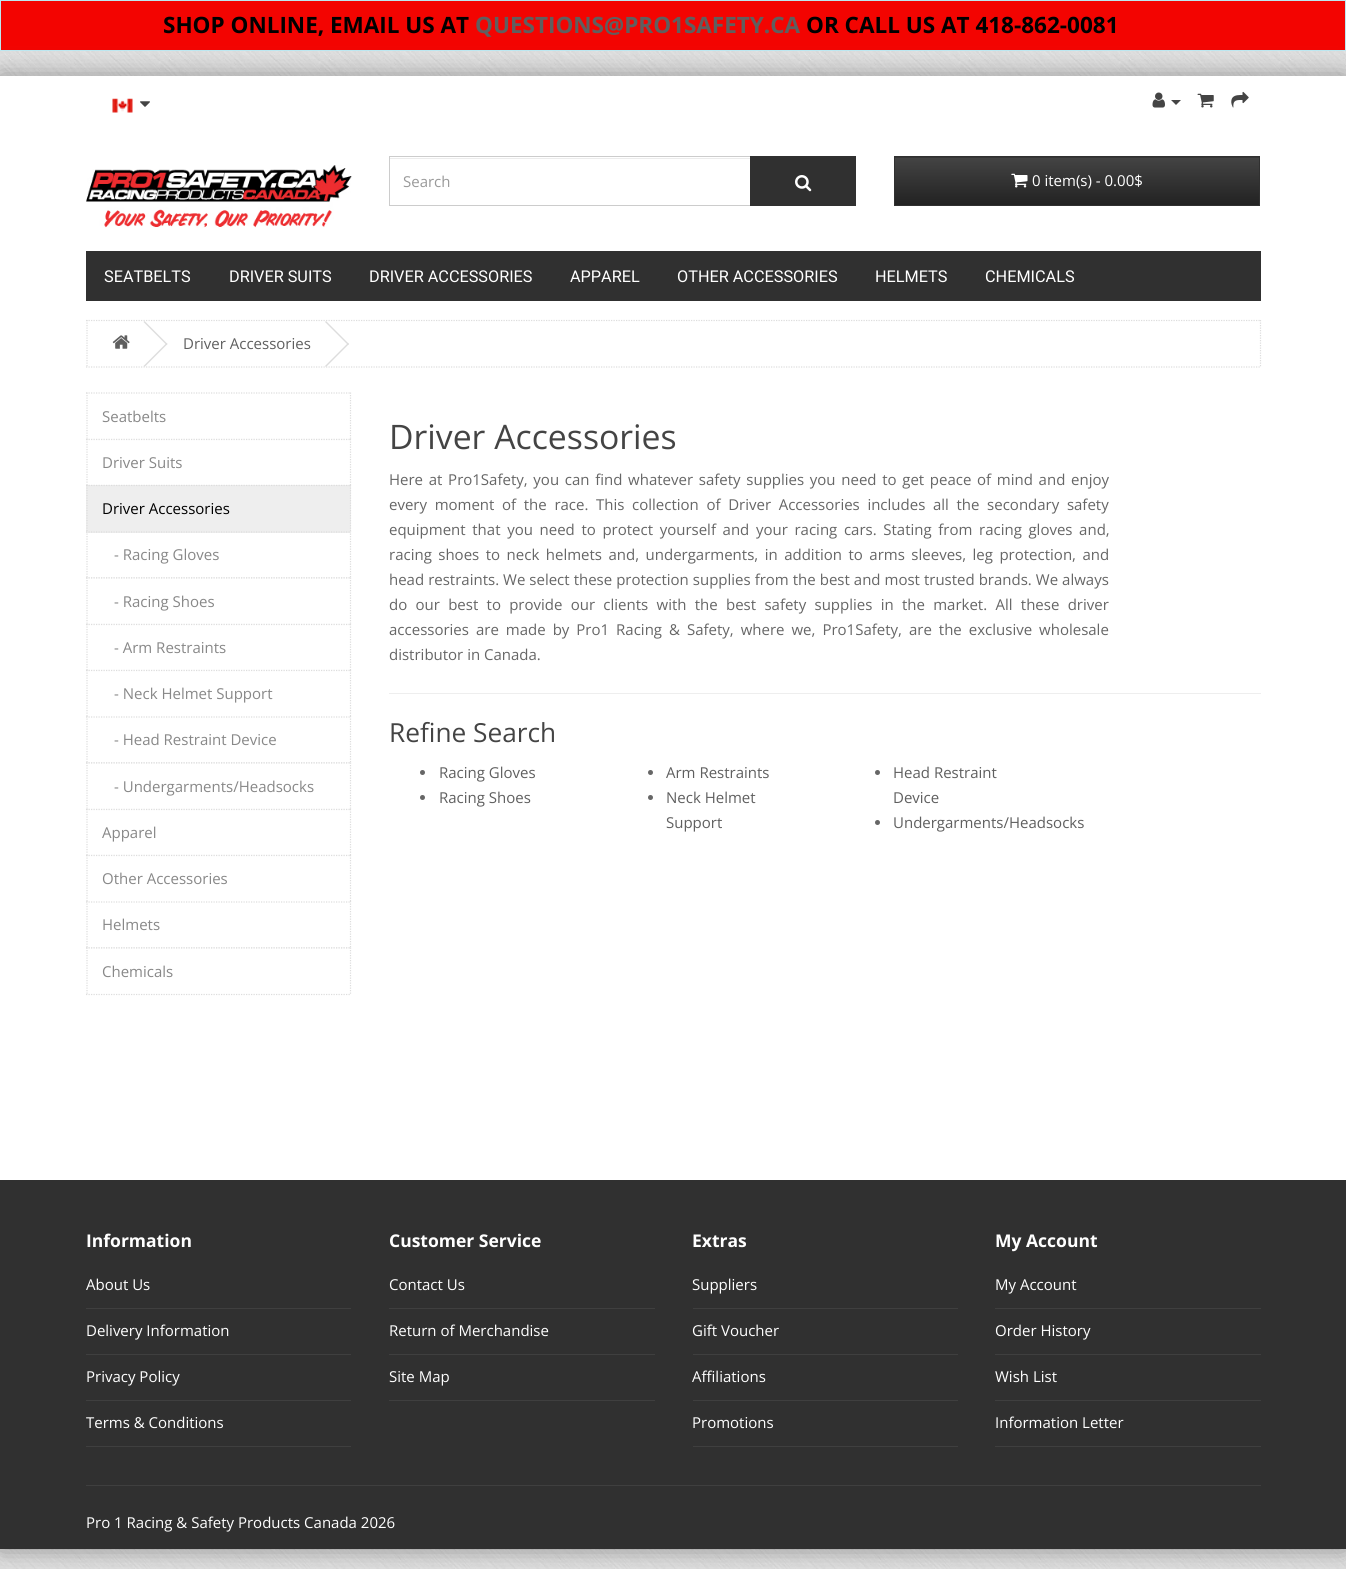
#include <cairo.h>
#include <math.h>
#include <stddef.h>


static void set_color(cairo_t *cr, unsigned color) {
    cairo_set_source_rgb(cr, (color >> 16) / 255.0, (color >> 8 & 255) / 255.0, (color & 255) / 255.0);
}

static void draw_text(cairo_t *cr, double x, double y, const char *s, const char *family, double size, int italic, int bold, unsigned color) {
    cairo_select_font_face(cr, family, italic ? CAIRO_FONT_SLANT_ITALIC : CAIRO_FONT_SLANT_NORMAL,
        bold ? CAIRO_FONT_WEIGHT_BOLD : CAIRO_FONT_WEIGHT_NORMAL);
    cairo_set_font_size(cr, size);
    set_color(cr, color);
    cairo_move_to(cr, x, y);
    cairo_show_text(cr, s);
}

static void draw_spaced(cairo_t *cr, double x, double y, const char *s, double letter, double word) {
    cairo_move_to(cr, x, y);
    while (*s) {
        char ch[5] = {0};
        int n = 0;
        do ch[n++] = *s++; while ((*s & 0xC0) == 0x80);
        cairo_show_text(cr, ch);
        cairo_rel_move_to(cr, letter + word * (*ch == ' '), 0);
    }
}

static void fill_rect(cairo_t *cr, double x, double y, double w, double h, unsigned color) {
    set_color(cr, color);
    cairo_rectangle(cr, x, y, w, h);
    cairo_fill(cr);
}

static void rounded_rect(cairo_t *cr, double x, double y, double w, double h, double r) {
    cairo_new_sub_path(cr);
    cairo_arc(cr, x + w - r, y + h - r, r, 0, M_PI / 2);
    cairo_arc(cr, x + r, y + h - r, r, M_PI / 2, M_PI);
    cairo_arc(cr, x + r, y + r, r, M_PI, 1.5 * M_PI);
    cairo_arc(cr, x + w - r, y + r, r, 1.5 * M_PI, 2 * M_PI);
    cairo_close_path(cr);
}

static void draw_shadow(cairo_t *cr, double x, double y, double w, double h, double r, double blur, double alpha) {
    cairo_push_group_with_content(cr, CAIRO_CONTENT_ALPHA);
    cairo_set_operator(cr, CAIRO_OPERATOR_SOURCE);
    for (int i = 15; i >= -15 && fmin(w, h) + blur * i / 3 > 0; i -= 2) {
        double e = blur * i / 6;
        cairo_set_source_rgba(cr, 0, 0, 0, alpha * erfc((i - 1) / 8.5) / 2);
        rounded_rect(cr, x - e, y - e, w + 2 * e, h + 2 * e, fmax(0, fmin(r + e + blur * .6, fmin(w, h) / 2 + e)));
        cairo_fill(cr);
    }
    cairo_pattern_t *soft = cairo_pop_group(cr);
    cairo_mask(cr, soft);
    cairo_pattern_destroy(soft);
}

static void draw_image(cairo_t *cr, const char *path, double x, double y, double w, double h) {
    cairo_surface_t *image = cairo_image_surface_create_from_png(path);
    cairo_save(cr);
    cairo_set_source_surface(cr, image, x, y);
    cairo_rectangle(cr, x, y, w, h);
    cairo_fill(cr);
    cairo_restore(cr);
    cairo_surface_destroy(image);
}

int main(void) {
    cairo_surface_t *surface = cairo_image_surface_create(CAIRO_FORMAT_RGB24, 1346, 1569);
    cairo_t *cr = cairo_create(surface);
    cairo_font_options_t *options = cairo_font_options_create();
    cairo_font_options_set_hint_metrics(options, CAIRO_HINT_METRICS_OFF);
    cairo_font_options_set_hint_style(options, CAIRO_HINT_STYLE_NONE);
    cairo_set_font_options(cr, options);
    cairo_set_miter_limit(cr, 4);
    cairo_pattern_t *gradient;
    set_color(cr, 0xFFFFFF);
    cairo_paint(cr);
    draw_image(cr, "assets/img1.png", 0, 51, 1346, 1518);
    set_color(cr, 0xF30401);
    cairo_rectangle(cr, 0.5, 0.5, 1345, 50);
    cairo_fill_preserve(cr);
    set_color(cr, 0xBCE8F1);
    cairo_set_line_width(cr, 1);
    cairo_stroke(cr);
    draw_text(cr, 163, 33, "SHOP ONLINE, EMAIL US AT", "Open Sans", 22.5, 0, 1, 0x000000);
    draw_text(cr, 475, 33, "QUESTIONS@PRO1SAFETY.CA", "Open Sans", 22.5, 0, 1, 0x5F5F5F);
    draw_text(cr, 806, 33, "OR CALL US AT 418-862-0081", "Open Sans", 22.5, 0, 1, 0x000000);
    set_color(cr, 0x858585);
    draw_shadow(cr, 1, 78, 1344, 1470, 0, 12.5, 1);
    fill_rect(cr, 0, 76, 1346, 1104, 0xFFFFFF);
    draw_image(cr, "assets/img2.png", 112, 98, 21, 15);
    draw_image(cr, "assets/img3.png", 140, 101, 10, 6);
    draw_image(cr, "assets/img4.png", 1152, 92, 13, 16);
    set_color(cr, 0x444444);
    cairo_new_path(cr);
    cairo_move_to(cr, 1171, 100);
    cairo_line_to(cr, 1181, 100);
    cairo_line_to(cr, 1176, 105);
    cairo_close_path(cr);
    cairo_fill(cr);
    draw_image(cr, "assets/img5.png", 1197, 93, 17, 15);
    draw_image(cr, "assets/img6.png", 1231, 91, 18, 17);
    draw_image(cr, "assets/img7.png", 86, 165, 266, 63);
    fill_rect(cr, 390, 158, 360, 1, 0xECECEC);
    cairo_rectangle(cr, 389.5, 156.5, 361, 49);
    set_color(cr, 0xCCCCCC);
    cairo_stroke(cr);
    draw_text(cr, 403, 187, "Search", "Open Sans", 15, 0, 0, 0x999999);
    fill_rect(cr, 750, 156, 106, 50, 0x303030);
    draw_image(cr, "assets/img8.png", 795, 175, 17, 17);
    fill_rect(cr, 895, 157, 364, 1, 0x363636);
    gradient = cairo_pattern_create_linear(1077, 157, 1077, 205);
    cairo_pattern_add_color_stop_rgba(gradient, 0, 0.267, 0.267, 0.267, 1);
    cairo_pattern_add_color_stop_rgba(gradient, 1, 0.133, 0.133, 0.133, 1);
    cairo_set_source(cr, gradient);
    cairo_pattern_destroy(gradient);
    cairo_rectangle(cr, 895, 158, 364, 47);
    cairo_fill(cr);
    cairo_rectangle(cr, 894.5, 156.5, 365, 49);
    set_color(cr, 0x303030);
    cairo_stroke(cr);
    draw_image(cr, "assets/img9.png", 1011, 173, 17, 15);
    draw_text(cr, 1032, 186, "0 item(s) - 0.00$", "Open Sans", 15, 0, 0, 0xFFFFFF);
    fill_rect(cr, 86, 251, 1175, 50, 0x303030);
    draw_text(cr, 104, 282, "SEATBELTS", "Roboto", 16.25, 0, 0, 0xFFFFFF);
    draw_text(cr, 229, 282, "DRIVER SUITS", "Roboto", 16.25, 0, 0, 0xFFFFFF);
    draw_text(cr, 369, 282, "DRIVER ACCESSORIES", "Roboto", 16.25, 0, 0, 0xFFFFFF);
    draw_text(cr, 570, 282, "APPAREL", "Roboto", 16.25, 0, 0, 0xFFFFFF);
    draw_text(cr, 677, 282, "OTHER ACCESSORIES", "Roboto", 16.25, 0, 0, 0xFFFFFF);
    draw_text(cr, 875, 282, "HELMETS", "Roboto", 16.25, 0, 0, 0xFFFFFF);
    draw_text(cr, 985, 282, "CHEMICALS", "Roboto", 16.25, 0, 0, 0xFFFFFF);
    cairo_new_path(cr);
    cairo_move_to(cr, 86, 320.5);
    cairo_line_to(cr, 1261, 320.5);
    set_color(cr, 0xDDDDDD);
    cairo_set_line_width(cr, 1.2);
    cairo_set_dash(cr, (double[]){1.25, 1.25}, 2, 0);
    cairo_stroke(cr);
    cairo_new_path(cr);
    cairo_move_to(cr, 1260.5, 320);
    cairo_line_to(cr, 1260.5, 367.5);
    cairo_stroke(cr);
    cairo_new_path(cr);
    cairo_move_to(cr, 86, 367);
    cairo_line_to(cr, 1261, 367);
    cairo_stroke(cr);
    cairo_new_path(cr);
    cairo_move_to(cr, 87, 320);
    cairo_line_to(cr, 87, 367.5);
    cairo_stroke(cr);
    draw_image(cr, "assets/img10.png", 112, 335, 18, 14);
    cairo_new_path(cr);
    cairo_move_to(cr, 143.5, 322);
    cairo_line_to(cr, 144.5, 321);
    cairo_line_to(cr, 167.5, 344);
    cairo_line_to(cr, 166.5, 345);
    cairo_close_path(cr);
    cairo_fill(cr);
    cairo_new_path(cr);
    cairo_move_to(cr, 143.5, 366);
    cairo_line_to(cr, 166.5, 343);
    cairo_line_to(cr, 167.5, 344);
    cairo_line_to(cr, 144.5, 367);
    cairo_close_path(cr);
    cairo_fill(cr);
    draw_text(cr, 183, 349, "Driver Accessories", "Open Sans", 15, 0, 0, 0x5F5F5F);
    set_color(cr, 0xDDDDDD);
    cairo_new_path(cr);
    cairo_move_to(cr, 325, 322);
    cairo_line_to(cr, 326, 321);
    cairo_line_to(cr, 349, 344);
    cairo_line_to(cr, 348, 345);
    cairo_close_path(cr);
    cairo_fill(cr);
    cairo_new_path(cr);
    cairo_move_to(cr, 325, 366);
    cairo_line_to(cr, 348, 343);
    cairo_line_to(cr, 349, 344);
    cairo_line_to(cr, 326, 367);
    cairo_close_path(cr);
    cairo_fill(cr);
    cairo_new_path(cr);
    cairo_move_to(cr, 86, 393);
    cairo_line_to(cr, 351, 393);
    cairo_stroke(cr);
    cairo_new_path(cr);
    cairo_move_to(cr, 350.5, 392.5);
    cairo_line_to(cr, 350.5, 440);
    cairo_stroke(cr);
    cairo_new_path(cr);
    cairo_move_to(cr, 86, 439.5);
    cairo_line_to(cr, 351, 439.5);
    cairo_stroke(cr);
    cairo_new_path(cr);
    cairo_move_to(cr, 87, 392.5);
    cairo_line_to(cr, 87, 440);
    cairo_stroke(cr);
    draw_text(cr, 102, 422, "Seatbelts", "Open Sans", 15, 0, 0, 0x888888);
    fill_rect(cr, 86, 439, 264, 2, 0xFFFFFF);
    cairo_new_path(cr);
    cairo_move_to(cr, 86, 439.5);
    cairo_line_to(cr, 351, 439.5);
    set_color(cr, 0xDDDDDD);
    cairo_stroke(cr);
    cairo_new_path(cr);
    cairo_move_to(cr, 350.5, 439);
    cairo_line_to(cr, 350.5, 486);
    cairo_stroke(cr);
    cairo_new_path(cr);
    cairo_move_to(cr, 86, 485.5);
    cairo_line_to(cr, 351, 485.5);
    cairo_stroke(cr);
    cairo_new_path(cr);
    cairo_move_to(cr, 87, 439);
    cairo_line_to(cr, 87, 486);
    cairo_stroke(cr);
    draw_text(cr, 102, 468, "Driver Suits", "Open Sans", 15, 0, 0, 0x888888);
    cairo_new_path(cr);
    cairo_move_to(cr, 350.5, 531);
    cairo_line_to(cr, 350.5, 579);
    set_color(cr, 0xDDDDDD);
    cairo_stroke(cr);
    cairo_new_path(cr);
    cairo_move_to(cr, 86, 578);
    cairo_line_to(cr, 351, 578);
    cairo_stroke(cr);
    cairo_new_path(cr);
    cairo_move_to(cr, 87, 531);
    cairo_line_to(cr, 87, 579);
    cairo_stroke(cr);
    fill_rect(cr, 86, 485, 265, 48, 0xEEEEEE);
    cairo_new_path(cr);
    cairo_move_to(cr, 86, 485.5);
    cairo_line_to(cr, 351, 485.5);
    set_color(cr, 0xDDDDDD);
    cairo_stroke(cr);
    cairo_new_path(cr);
    cairo_move_to(cr, 350.5, 485);
    cairo_line_to(cr, 350.5, 532.5);
    cairo_stroke(cr);
    cairo_new_path(cr);
    cairo_move_to(cr, 86, 532);
    cairo_line_to(cr, 351, 532);
    cairo_stroke(cr);
    cairo_new_path(cr);
    cairo_move_to(cr, 87, 485);
    cairo_line_to(cr, 87, 532.5);
    cairo_stroke(cr);
    draw_text(cr, 102, 514, "Driver Accessories", "Open Sans", 15, 0, 0, 0x000000);
    draw_text(cr, 114, 560, "- Racing Gloves", "Open Sans", 15, 0, 0, 0x888888);
    fill_rect(cr, 86, 578, 265, 1, 0xFFFFFF);
    cairo_new_path(cr);
    cairo_move_to(cr, 86, 578);
    cairo_line_to(cr, 351, 578);
    set_color(cr, 0xDDDDDD);
    cairo_stroke(cr);
    cairo_new_path(cr);
    cairo_move_to(cr, 350.5, 577.5);
    cairo_line_to(cr, 350.5, 625);
    cairo_stroke(cr);
    cairo_new_path(cr);
    cairo_move_to(cr, 86, 624.5);
    cairo_line_to(cr, 351, 624.5);
    cairo_stroke(cr);
    cairo_new_path(cr);
    cairo_move_to(cr, 87, 577.5);
    cairo_line_to(cr, 87, 625);
    cairo_stroke(cr);
    draw_text(cr, 114, 607, "- Racing Shoes", "Open Sans", 15, 0, 0, 0x888888);
    fill_rect(cr, 86, 624, 264, 2, 0xFFFFFF);
    cairo_new_path(cr);
    cairo_move_to(cr, 86, 624.5);
    cairo_line_to(cr, 351, 624.5);
    set_color(cr, 0xDDDDDD);
    cairo_stroke(cr);
    cairo_new_path(cr);
    cairo_move_to(cr, 350.5, 624);
    cairo_line_to(cr, 350.5, 671);
    cairo_stroke(cr);
    cairo_new_path(cr);
    cairo_move_to(cr, 86, 670.5);
    cairo_line_to(cr, 351, 670.5);
    cairo_stroke(cr);
    cairo_new_path(cr);
    cairo_move_to(cr, 87, 624);
    cairo_line_to(cr, 87, 671);
    cairo_stroke(cr);
    draw_text(cr, 114, 653, "- Arm Restraints", "Open Sans", 15, 0, 0, 0x888888);
    fill_rect(cr, 86, 670, 265, 2, 0xFFFFFF);
    cairo_new_path(cr);
    cairo_move_to(cr, 86, 670.5);
    cairo_line_to(cr, 351, 670.5);
    set_color(cr, 0xDDDDDD);
    cairo_stroke(cr);
    cairo_new_path(cr);
    cairo_move_to(cr, 350.5, 670);
    cairo_line_to(cr, 350.5, 717.5);
    cairo_stroke(cr);
    cairo_new_path(cr);
    cairo_move_to(cr, 87, 670);
    cairo_line_to(cr, 87, 717.5);
    cairo_stroke(cr);
    draw_text(cr, 114, 699, "- Neck Helmet Support", "Open Sans", 15, 0, 0, 0x888888);
    fill_rect(cr, 86, 716, 265, 1, 0xFFFFFF);
    cairo_new_path(cr);
    cairo_move_to(cr, 86, 717);
    cairo_line_to(cr, 351, 717);
    set_color(cr, 0xDDDDDD);
    cairo_stroke(cr);
    cairo_new_path(cr);
    cairo_move_to(cr, 350.5, 716);
    cairo_line_to(cr, 350.5, 764);
    cairo_stroke(cr);
    cairo_new_path(cr);
    cairo_move_to(cr, 86, 763);
    cairo_line_to(cr, 351, 763);
    cairo_stroke(cr);
    cairo_new_path(cr);
    cairo_move_to(cr, 87, 716);
    cairo_line_to(cr, 87, 764);
    cairo_stroke(cr);
    draw_text(cr, 114, 745, "- Head Restraint Device", "Open Sans", 15, 0, 0, 0x888888);
    fill_rect(cr, 86, 763, 265, 1, 0xFFFFFF);
    cairo_new_path(cr);
    cairo_move_to(cr, 86, 763);
    cairo_line_to(cr, 351, 763);
    set_color(cr, 0xDDDDDD);
    cairo_stroke(cr);
    cairo_new_path(cr);
    cairo_move_to(cr, 350.5, 762.5);
    cairo_line_to(cr, 350.5, 810);
    cairo_stroke(cr);
    cairo_new_path(cr);
    cairo_move_to(cr, 86, 809.5);
    cairo_line_to(cr, 351, 809.5);
    cairo_stroke(cr);
    cairo_new_path(cr);
    cairo_move_to(cr, 87, 762.5);
    cairo_line_to(cr, 87, 810);
    cairo_stroke(cr);
    draw_text(cr, 114, 792, "- Undergarments/Headsocks", "Open Sans", 15, 0, 0, 0x888888);
    fill_rect(cr, 86, 809, 264, 2, 0xFFFFFF);
    cairo_new_path(cr);
    cairo_move_to(cr, 86, 809.5);
    cairo_line_to(cr, 351, 809.5);
    set_color(cr, 0xDDDDDD);
    cairo_stroke(cr);
    cairo_new_path(cr);
    cairo_move_to(cr, 350.5, 809);
    cairo_line_to(cr, 350.5, 856);
    cairo_stroke(cr);
    cairo_new_path(cr);
    cairo_move_to(cr, 86, 855.5);
    cairo_line_to(cr, 351, 855.5);
    cairo_stroke(cr);
    cairo_new_path(cr);
    cairo_move_to(cr, 87, 809);
    cairo_line_to(cr, 87, 856);
    cairo_stroke(cr);
    draw_text(cr, 102, 838, "Apparel", "Open Sans", 15, 0, 0, 0x888888);
    fill_rect(cr, 86, 855, 265, 2, 0xFFFFFF);
    cairo_new_path(cr);
    cairo_move_to(cr, 86, 855.5);
    cairo_line_to(cr, 351, 855.5);
    set_color(cr, 0xDDDDDD);
    cairo_stroke(cr);
    cairo_new_path(cr);
    cairo_move_to(cr, 350.5, 855);
    cairo_line_to(cr, 350.5, 902.5);
    cairo_stroke(cr);
    cairo_new_path(cr);
    cairo_move_to(cr, 87, 855);
    cairo_line_to(cr, 87, 902.5);
    cairo_stroke(cr);
    draw_text(cr, 102, 884, "Other Accessories", "Open Sans", 15, 0, 0, 0x888888);
    fill_rect(cr, 86, 901, 265, 1, 0xFFFFFF);
    cairo_new_path(cr);
    cairo_move_to(cr, 86, 902);
    cairo_line_to(cr, 351, 902);
    set_color(cr, 0xDDDDDD);
    cairo_stroke(cr);
    cairo_new_path(cr);
    cairo_move_to(cr, 350.5, 901);
    cairo_line_to(cr, 350.5, 949);
    cairo_stroke(cr);
    cairo_new_path(cr);
    cairo_move_to(cr, 86, 948);
    cairo_line_to(cr, 351, 948);
    cairo_stroke(cr);
    cairo_new_path(cr);
    cairo_move_to(cr, 87, 901);
    cairo_line_to(cr, 87, 949);
    cairo_stroke(cr);
    draw_text(cr, 102, 930, "Helmets", "Open Sans", 15, 0, 0, 0x888888);
    fill_rect(cr, 86, 948, 265, 1, 0xFFFFFF);
    cairo_new_path(cr);
    cairo_move_to(cr, 86, 948);
    cairo_line_to(cr, 351, 948);
    set_color(cr, 0xDDDDDD);
    cairo_stroke(cr);
    cairo_new_path(cr);
    cairo_move_to(cr, 350.5, 947.5);
    cairo_line_to(cr, 350.5, 995);
    cairo_stroke(cr);
    cairo_new_path(cr);
    cairo_move_to(cr, 86, 994.5);
    cairo_line_to(cr, 351, 994.5);
    cairo_stroke(cr);
    cairo_new_path(cr);
    cairo_move_to(cr, 87, 947.5);
    cairo_line_to(cr, 87, 995);
    cairo_stroke(cr);
    draw_text(cr, 102, 977, "Chemicals", "Open Sans", 15, 0, 0, 0x888888);
    draw_text(cr, 389, 449, "Driver Accessories", "Open Sans", 33.75, 0, 0, 0x444444);
    cairo_set_font_size(cr, 15);
    set_color(cr, 0x666666);
    draw_spaced(cr, 389, 485, "Here at Pro1Safety, you can find whatever safety supplies you need to get peace of mind and enjoy", 0, 1.8);
    draw_spaced(cr, 389, 510, "every moment of the race. This collection of Driver Accessories includes all the secondary safety", 0, 3.75);
    draw_spaced(cr, 389, 535, "equipment that you need to protect yourself and your racing cars. Stating from racing gloves and,", 0, 2.75);
    draw_spaced(cr, 389, 560, "racing shoes to neck helmets and, undergarments, in addition to arms sleeves, leg protection, and", 0, 2.6);
    draw_spaced(cr, 389, 585, "head restraints. We select these protection supplies from the best and most trusted brands. We always", 0, 0.1);
    draw_spaced(cr, 389, 610, "do our best to provide our clients with the best safety supplies in the market. All these driver", 0, 4.4);
    draw_spaced(cr, 389, 635, "accessories are made by Pro1 Racing & Safety, where we, Pro1Safety, are the exclusive wholesale", 0, 3.1);
    draw_text(cr, 389, 660, "distributor in Canada.", "Open Sans", 15, 0, 0, 0x666666);
    fill_rect(cr, 389, 693, 872, 1, 0xEEEEEE);
    draw_text(cr, 389, 742, "Refine Search", "Open Sans", 26.25, 0, 0, 0x444444);
    set_color(cr, 0x666666);
    cairo_new_path(cr);
    cairo_arc(cr, 422.5, 772.5, 2.5, 0, 2 * M_PI);
    cairo_fill(cr);
    draw_text(cr, 439, 778, "Racing Gloves", "Open Sans", 15, 0, 0, 0x5F5F5F);
    set_color(cr, 0x666666);
    cairo_new_path(cr);
    cairo_arc(cr, 422.5, 797.5, 2.5, 0, 2 * M_PI);
    cairo_fill(cr);
    draw_text(cr, 439, 803, "Racing Shoes", "Open Sans", 15, 0, 0, 0x5F5F5F);
    set_color(cr, 0x666666);
    cairo_new_path(cr);
    cairo_arc(cr, 650.5, 772.5, 2.5, 0, 2 * M_PI);
    cairo_fill(cr);
    draw_text(cr, 666, 778, "Arm Restraints", "Open Sans", 15, 0, 0, 0x5F5F5F);
    set_color(cr, 0x666666);
    cairo_new_path(cr);
    cairo_arc(cr, 650.5, 797.5, 2.5, 0, 2 * M_PI);
    cairo_fill(cr);
    draw_text(cr, 666, 803, "Neck Helmet", "Open Sans", 15, 0, 0, 0x5F5F5F);
    draw_text(cr, 666, 828, "Support", "Open Sans", 15, 0, 0, 0x5F5F5F);
    set_color(cr, 0x666666);
    cairo_new_path(cr);
    cairo_arc(cr, 877.5, 772.5, 2.5, 0, 2 * M_PI);
    cairo_fill(cr);
    draw_text(cr, 893, 778, "Head Restraint", "Open Sans", 15, 0, 0, 0x5F5F5F);
    draw_text(cr, 893, 803, "Device", "Open Sans", 15, 0, 0, 0x5F5F5F);
    set_color(cr, 0x666666);
    cairo_new_path(cr);
    cairo_arc(cr, 877.5, 822.5, 2.5, 0, 2 * M_PI);
    cairo_fill(cr);
    draw_text(cr, 893, 828, "Undergarments/Headsocks", "Open Sans", 15, 0, 0, 0x5F5F5F);
    fill_rect(cr, 0, 1180, 1346, 369, 0x303030);
    draw_text(cr, 86, 1247, "Information", "Open Sans", 17.5, 0, 1, 0xFFFFFF);
    fill_rect(cr, 86, 1308, 265, 1, 0x3F3F3F);
    draw_text(cr, 86, 1290, "About Us", "Open Sans", 15, 0, 0, 0xFFFFFF);
    fill_rect(cr, 86, 1354, 265, 1, 0x3F3F3F);
    draw_text(cr, 86, 1336, "Delivery Information", "Open Sans", 15, 0, 0, 0xFFFFFF);
    fill_rect(cr, 86, 1400, 265, 1, 0x3F3F3F);
    draw_text(cr, 86, 1382, "Privacy Policy", "Open Sans", 15, 0, 0, 0xFFFFFF);
    fill_rect(cr, 86, 1446, 265, 1, 0x3F3F3F);
    draw_text(cr, 86, 1428, "Terms & Conditions", "Open Sans", 15, 0, 0, 0xFFFFFF);
    draw_text(cr, 389, 1247, "Customer Service", "Open Sans", 17.5, 0, 1, 0xFFFFFF);
    fill_rect(cr, 389, 1308, 266, 1, 0x3F3F3F);
    draw_text(cr, 389, 1290, "Contact Us", "Open Sans", 15, 0, 0, 0xFFFFFF);
    fill_rect(cr, 389, 1354, 266, 1, 0x3F3F3F);
    draw_text(cr, 389, 1336, "Return of Merchandise", "Open Sans", 15, 0, 0, 0xFFFFFF);
    fill_rect(cr, 389, 1400, 266, 1, 0x3F3F3F);
    draw_text(cr, 389, 1382, "Site Map", "Open Sans", 15, 0, 0, 0xFFFFFF);
    draw_text(cr, 692, 1247, "Extras", "Open Sans", 17.5, 0, 1, 0xFFFFFF);
    fill_rect(cr, 693, 1308, 265, 1, 0x3F3F3F);
    draw_text(cr, 692, 1290, "Suppliers", "Open Sans", 15, 0, 0, 0xFFFFFF);
    fill_rect(cr, 693, 1354, 265, 1, 0x3F3F3F);
    draw_text(cr, 692, 1336, "Gift Voucher", "Open Sans", 15, 0, 0, 0xFFFFFF);
    fill_rect(cr, 693, 1400, 265, 1, 0x3F3F3F);
    draw_text(cr, 692, 1382, "Affiliations", "Open Sans", 15, 0, 0, 0xFFFFFF);
    fill_rect(cr, 693, 1446, 265, 1, 0x3F3F3F);
    draw_text(cr, 692, 1428, "Promotions", "Open Sans", 15, 0, 0, 0xFFFFFF);
    draw_text(cr, 995, 1247, "My Account", "Open Sans", 17.5, 0, 1, 0xFFFFFF);
    fill_rect(cr, 995, 1308, 266, 1, 0x3F3F3F);
    draw_text(cr, 995, 1290, "My Account", "Open Sans", 15, 0, 0, 0xFFFFFF);
    fill_rect(cr, 995, 1354, 266, 1, 0x3F3F3F);
    draw_text(cr, 995, 1336, "Order History", "Open Sans", 15, 0, 0, 0xFFFFFF);
    fill_rect(cr, 995, 1400, 266, 1, 0x3F3F3F);
    draw_text(cr, 995, 1382, "Wish List", "Open Sans", 15, 0, 0, 0xFFFFFF);
    fill_rect(cr, 995, 1446, 266, 1, 0x3F3F3F);
    draw_text(cr, 995, 1428, "Information Letter", "Open Sans", 15, 0, 0, 0xFFFFFF);
    fill_rect(cr, 86, 1485, 1175, 1, 0x3F3F3F);
    draw_text(cr, 86, 1528, "Pro 1 Racing & Safety Products Canada 2026", "Open Sans", 15, 0, 0, 0xFFFFFF);
    cairo_surface_write_to_png(surface, "output.png");
    cairo_font_options_destroy(options);
    cairo_destroy(cr);
    cairo_surface_destroy(surface);
    return 0;
}
